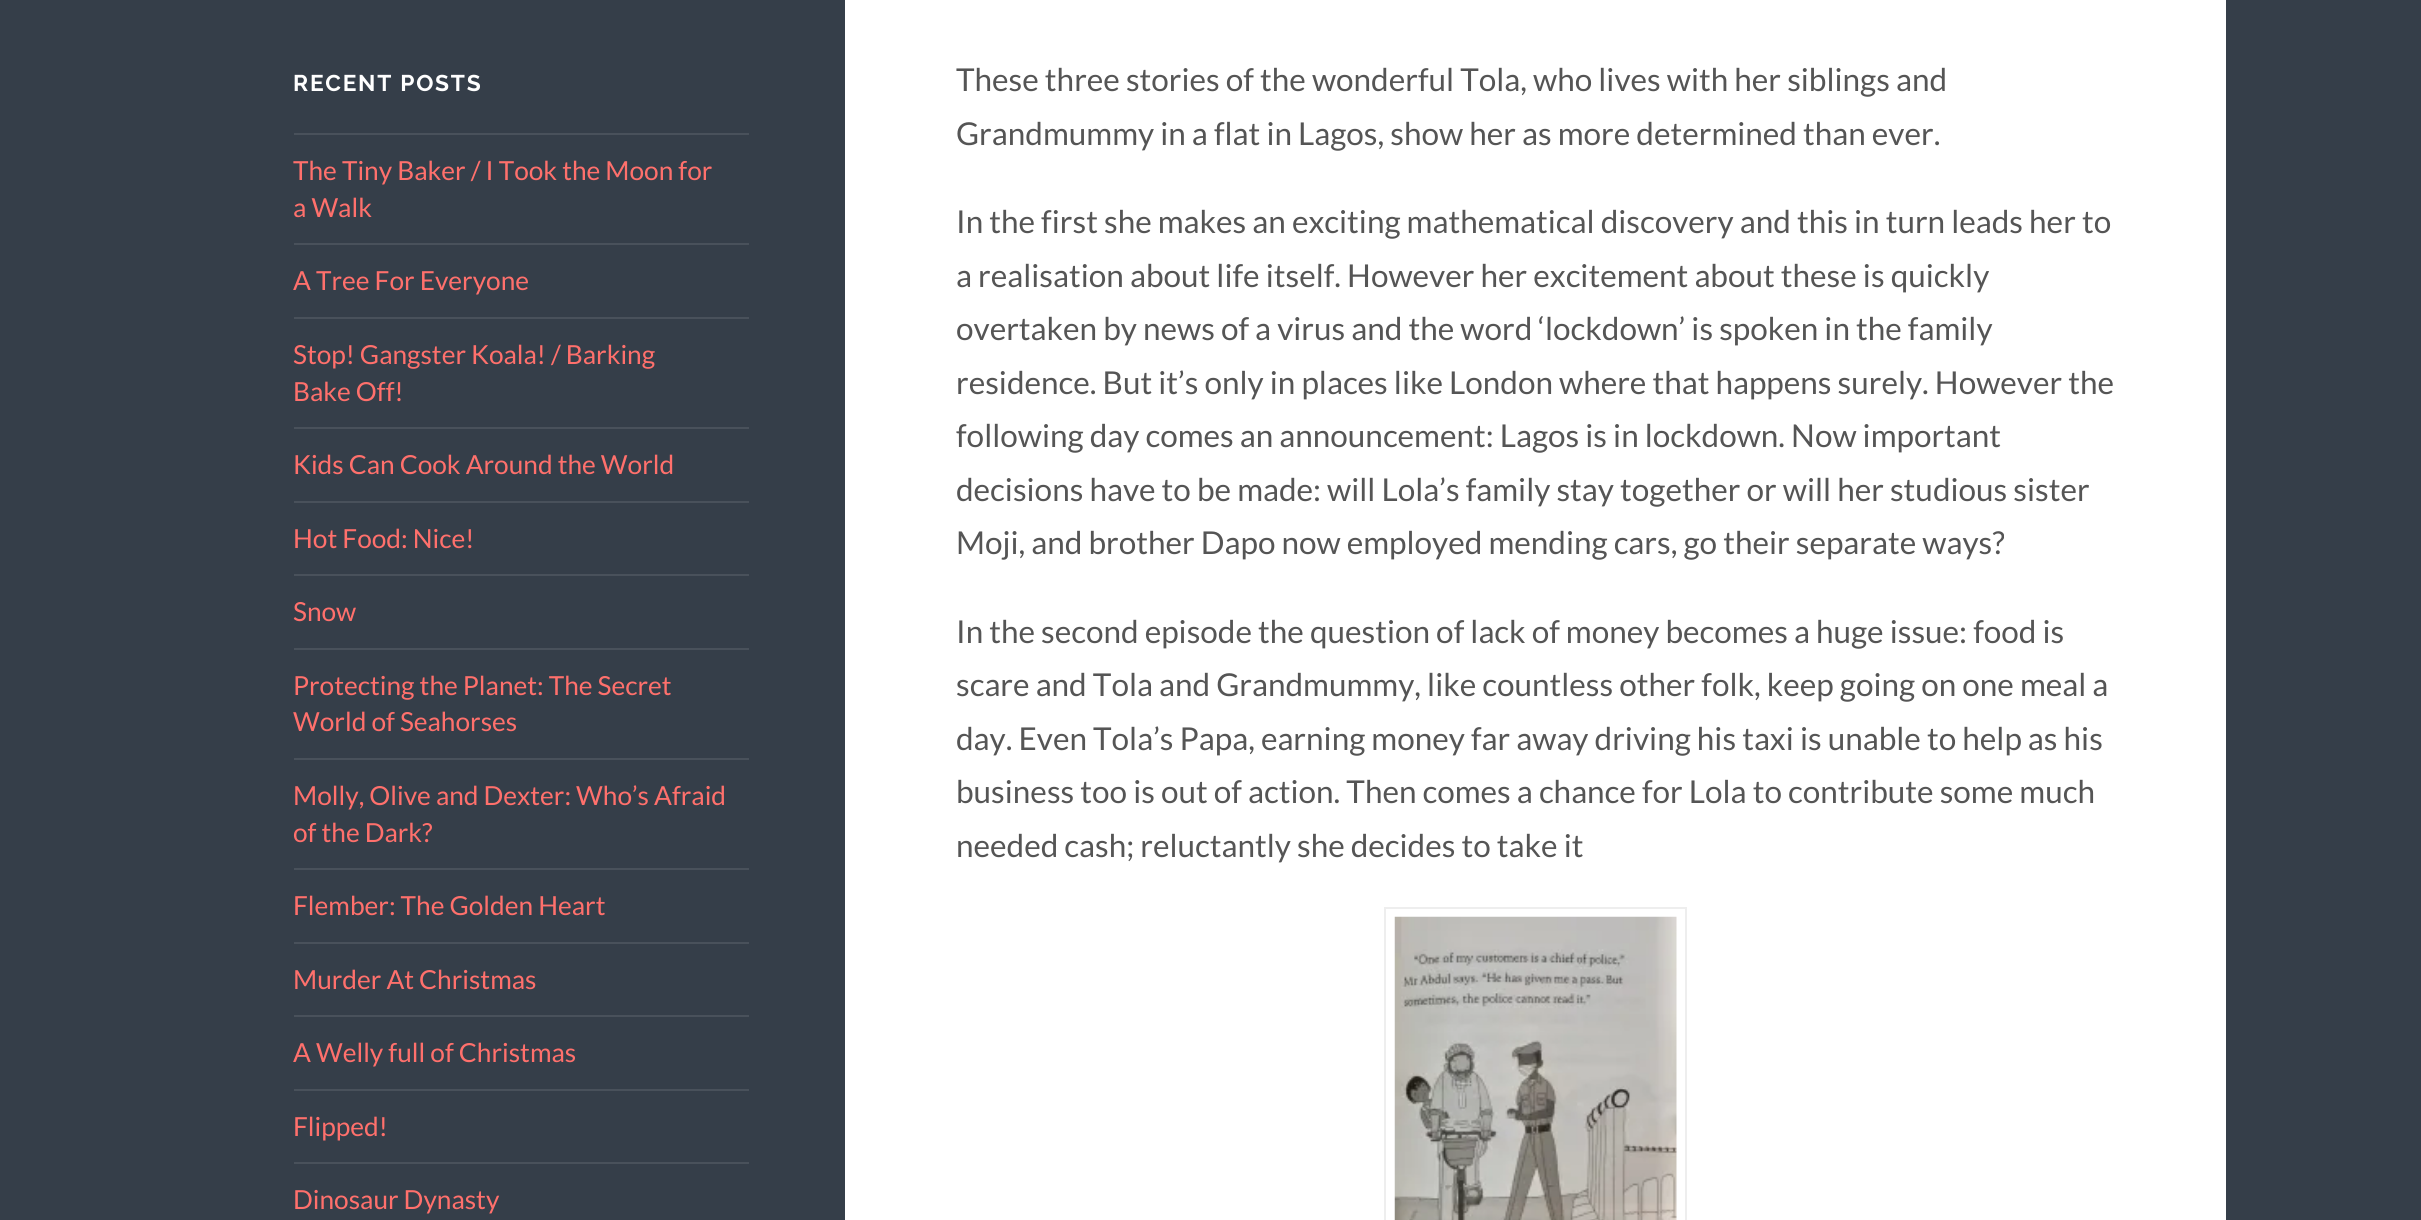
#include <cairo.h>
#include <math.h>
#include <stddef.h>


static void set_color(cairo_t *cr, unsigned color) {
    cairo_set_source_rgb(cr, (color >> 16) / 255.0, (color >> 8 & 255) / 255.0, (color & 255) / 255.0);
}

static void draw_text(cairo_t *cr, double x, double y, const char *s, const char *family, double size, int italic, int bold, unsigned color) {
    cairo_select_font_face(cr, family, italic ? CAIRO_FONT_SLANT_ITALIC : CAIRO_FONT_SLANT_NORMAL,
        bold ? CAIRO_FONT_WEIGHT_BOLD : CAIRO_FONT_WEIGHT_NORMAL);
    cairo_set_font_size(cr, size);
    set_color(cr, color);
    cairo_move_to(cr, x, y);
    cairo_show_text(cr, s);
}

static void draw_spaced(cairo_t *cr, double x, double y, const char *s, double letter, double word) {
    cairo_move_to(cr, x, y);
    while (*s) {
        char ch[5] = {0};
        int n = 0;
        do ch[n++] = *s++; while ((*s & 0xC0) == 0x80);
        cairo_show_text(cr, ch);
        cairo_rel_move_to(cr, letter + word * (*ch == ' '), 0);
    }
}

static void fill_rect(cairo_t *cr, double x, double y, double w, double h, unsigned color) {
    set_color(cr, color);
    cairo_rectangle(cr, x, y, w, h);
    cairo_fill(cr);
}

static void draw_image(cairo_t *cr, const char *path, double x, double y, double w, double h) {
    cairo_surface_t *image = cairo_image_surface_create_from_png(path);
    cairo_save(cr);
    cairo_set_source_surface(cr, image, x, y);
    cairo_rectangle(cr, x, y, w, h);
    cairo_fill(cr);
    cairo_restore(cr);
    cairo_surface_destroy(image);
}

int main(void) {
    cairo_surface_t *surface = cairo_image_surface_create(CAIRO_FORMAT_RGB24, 2421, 1220);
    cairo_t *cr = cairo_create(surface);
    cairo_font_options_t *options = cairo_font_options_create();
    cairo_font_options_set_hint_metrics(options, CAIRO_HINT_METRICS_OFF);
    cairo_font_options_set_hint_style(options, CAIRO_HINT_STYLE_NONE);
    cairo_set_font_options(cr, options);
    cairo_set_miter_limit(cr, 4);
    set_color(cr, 0x353E49);
    cairo_paint(cr);
    fill_rect(cr, 845, 0, 1381, 1220, 0xFFFFFF);
    cairo_select_font_face(cr, "Raleway", CAIRO_FONT_SLANT_NORMAL, CAIRO_FONT_WEIGHT_BOLD);
    cairo_set_font_size(cr, 22.75);
    draw_spaced(cr, 293, 91, "RECENT POSTS", 1.75, 0);
    fill_rect(cr, 294, 133, 455, 2, 0x49515B);
    draw_text(cr, 293, 180, "The Tiny Baker / I Took the Moon for", "Lato", 26.25, 0, 0, 0xFF706C);
    draw_text(cr, 293, 217, "a Walk", "Lato", 26.25, 0, 0, 0xFF706C);
    fill_rect(cr, 294, 243, 455, 2, 0x49515B);
    draw_text(cr, 293, 290, "A Tree For Everyone", "Lato", 26.25, 0, 0, 0xFF706C);
    fill_rect(cr, 294, 317, 455, 2, 0x49515B);
    draw_text(cr, 293, 364, "Stop! Gangster Koala! / Barking", "Lato", 26.25, 0, 0, 0xFF706C);
    draw_text(cr, 293, 401, "Bake Off!", "Lato", 26.25, 0, 0, 0xFF706C);
    fill_rect(cr, 294, 427, 455, 2, 0x49515B);
    draw_text(cr, 293, 474, "Kids Can Cook Around the World", "Lato", 26.25, 0, 0, 0xFF706C);
    fill_rect(cr, 294, 501, 455, 2, 0x49515B);
    draw_text(cr, 293, 548, "Hot Food: Nice!", "Lato", 26.25, 0, 0, 0xFF706C);
    fill_rect(cr, 294, 574, 455, 2, 0x49515B);
    draw_text(cr, 293, 621, "Snow", "Lato", 26.25, 0, 0, 0xFF706C);
    fill_rect(cr, 294, 648, 455, 2, 0x49515B);
    draw_text(cr, 293, 695, "Protecting the Planet: The Secret", "Lato", 26.25, 0, 0, 0xFF706C);
    draw_text(cr, 293, 731, "World of Seahorses", "Lato", 26.25, 0, 0, 0xFF706C);
    fill_rect(cr, 294, 758, 455, 2, 0x49515B);
    draw_text(cr, 293, 805, "Molly, Olive and Dexter: Who’s Afraid", "Lato", 26.25, 0, 0, 0xFF706C);
    draw_text(cr, 293, 842, "of the Dark?", "Lato", 26.25, 0, 0, 0xFF706C);
    fill_rect(cr, 294, 868, 455, 2, 0x49515B);
    draw_text(cr, 293, 915, "Flember: The Golden Heart", "Lato", 26.25, 0, 0, 0xFF706C);
    fill_rect(cr, 294, 942, 455, 2, 0x49515B);
    draw_text(cr, 293, 989, "Murder At Christmas", "Lato", 26.25, 0, 0, 0xFF706C);
    fill_rect(cr, 294, 1015, 455, 2, 0x49515B);
    draw_text(cr, 293, 1062, "A Welly full of Christmas", "Lato", 26.25, 0, 0, 0xFF706C);
    fill_rect(cr, 294, 1089, 455, 2, 0x49515B);
    draw_text(cr, 293, 1136, "Flipped!", "Lato", 26.25, 0, 0, 0xFF706C);
    fill_rect(cr, 294, 1162, 455, 2, 0x49515B);
    draw_text(cr, 293, 1209, "Dinosaur Dynasty", "Lato", 26.25, 0, 0, 0xFF706C);
    draw_text(cr, 956, 91, "These three stories of the wonderful Tola, who lives with her siblings and", "Lato", 31.5, 0, 0, 0x555555);
    draw_text(cr, 956, 145, "Grandmummy in a flat in Lagos, show her as more determined than ever.", "Lato", 31.5, 0, 0, 0x555555);
    draw_text(cr, 956, 233, "In the first she makes an exciting mathematical discovery and this in turn leads her to", "Lato", 31.5, 0, 0, 0x555555);
    draw_text(cr, 956, 287, "a realisation about life itself. However her excitement about these is quickly", "Lato", 31.5, 0, 0, 0x555555);
    draw_text(cr, 956, 340, "overtaken by news of a virus and the word ‘lockdown’ is spoken in the family", "Lato", 31.5, 0, 0, 0x555555);
    draw_text(cr, 956, 394, "residence. But it’s only in places like London where that happens surely. However the", "Lato", 31.5, 0, 0, 0x555555);
    draw_text(cr, 956, 447, "following day comes an announcement: Lagos is in lockdown. Now important", "Lato", 31.5, 0, 0, 0x555555);
    draw_text(cr, 956, 501, "decisions have to be made: will Lola’s family stay together or will her studious sister", "Lato", 31.5, 0, 0, 0x555555);
    draw_text(cr, 956, 554, "Moji, and brother Dapo now employed mending cars, go their separate ways?", "Lato", 31.5, 0, 0, 0x555555);
    draw_text(cr, 956, 643, "In the second episode the question of lack of money becomes a huge issue: food is", "Lato", 31.5, 0, 0, 0x555555);
    draw_text(cr, 956, 696, "scare and Tola and Grandmummy, like countless other folk, keep going on one meal a", "Lato", 31.5, 0, 0, 0x555555);
    draw_text(cr, 956, 750, "day. Even Tola’s Papa, earning money far away driving his taxi is unable to help as his", "Lato", 31.5, 0, 0, 0x555555);
    draw_text(cr, 956, 803, "business too is out of action. Then comes a chance for Lola to contribute some much", "Lato", 31.5, 0, 0, 0x555555);
    draw_text(cr, 956, 857, "needed cash; reluctantly she decides to take it", "Lato", 31.5, 0, 0, 0x555555);
    cairo_rectangle(cr, 1385, 908, 301, 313);
    set_color(cr, 0xEEEEEE);
    cairo_stroke(cr);
    draw_image(cr, "assets/img1.png", 1394, 916, 283, 304);
    cairo_surface_write_to_png(surface, "output.png");
    cairo_font_options_destroy(options);
    cairo_destroy(cr);
    cairo_surface_destroy(surface);
    return 0;
}
